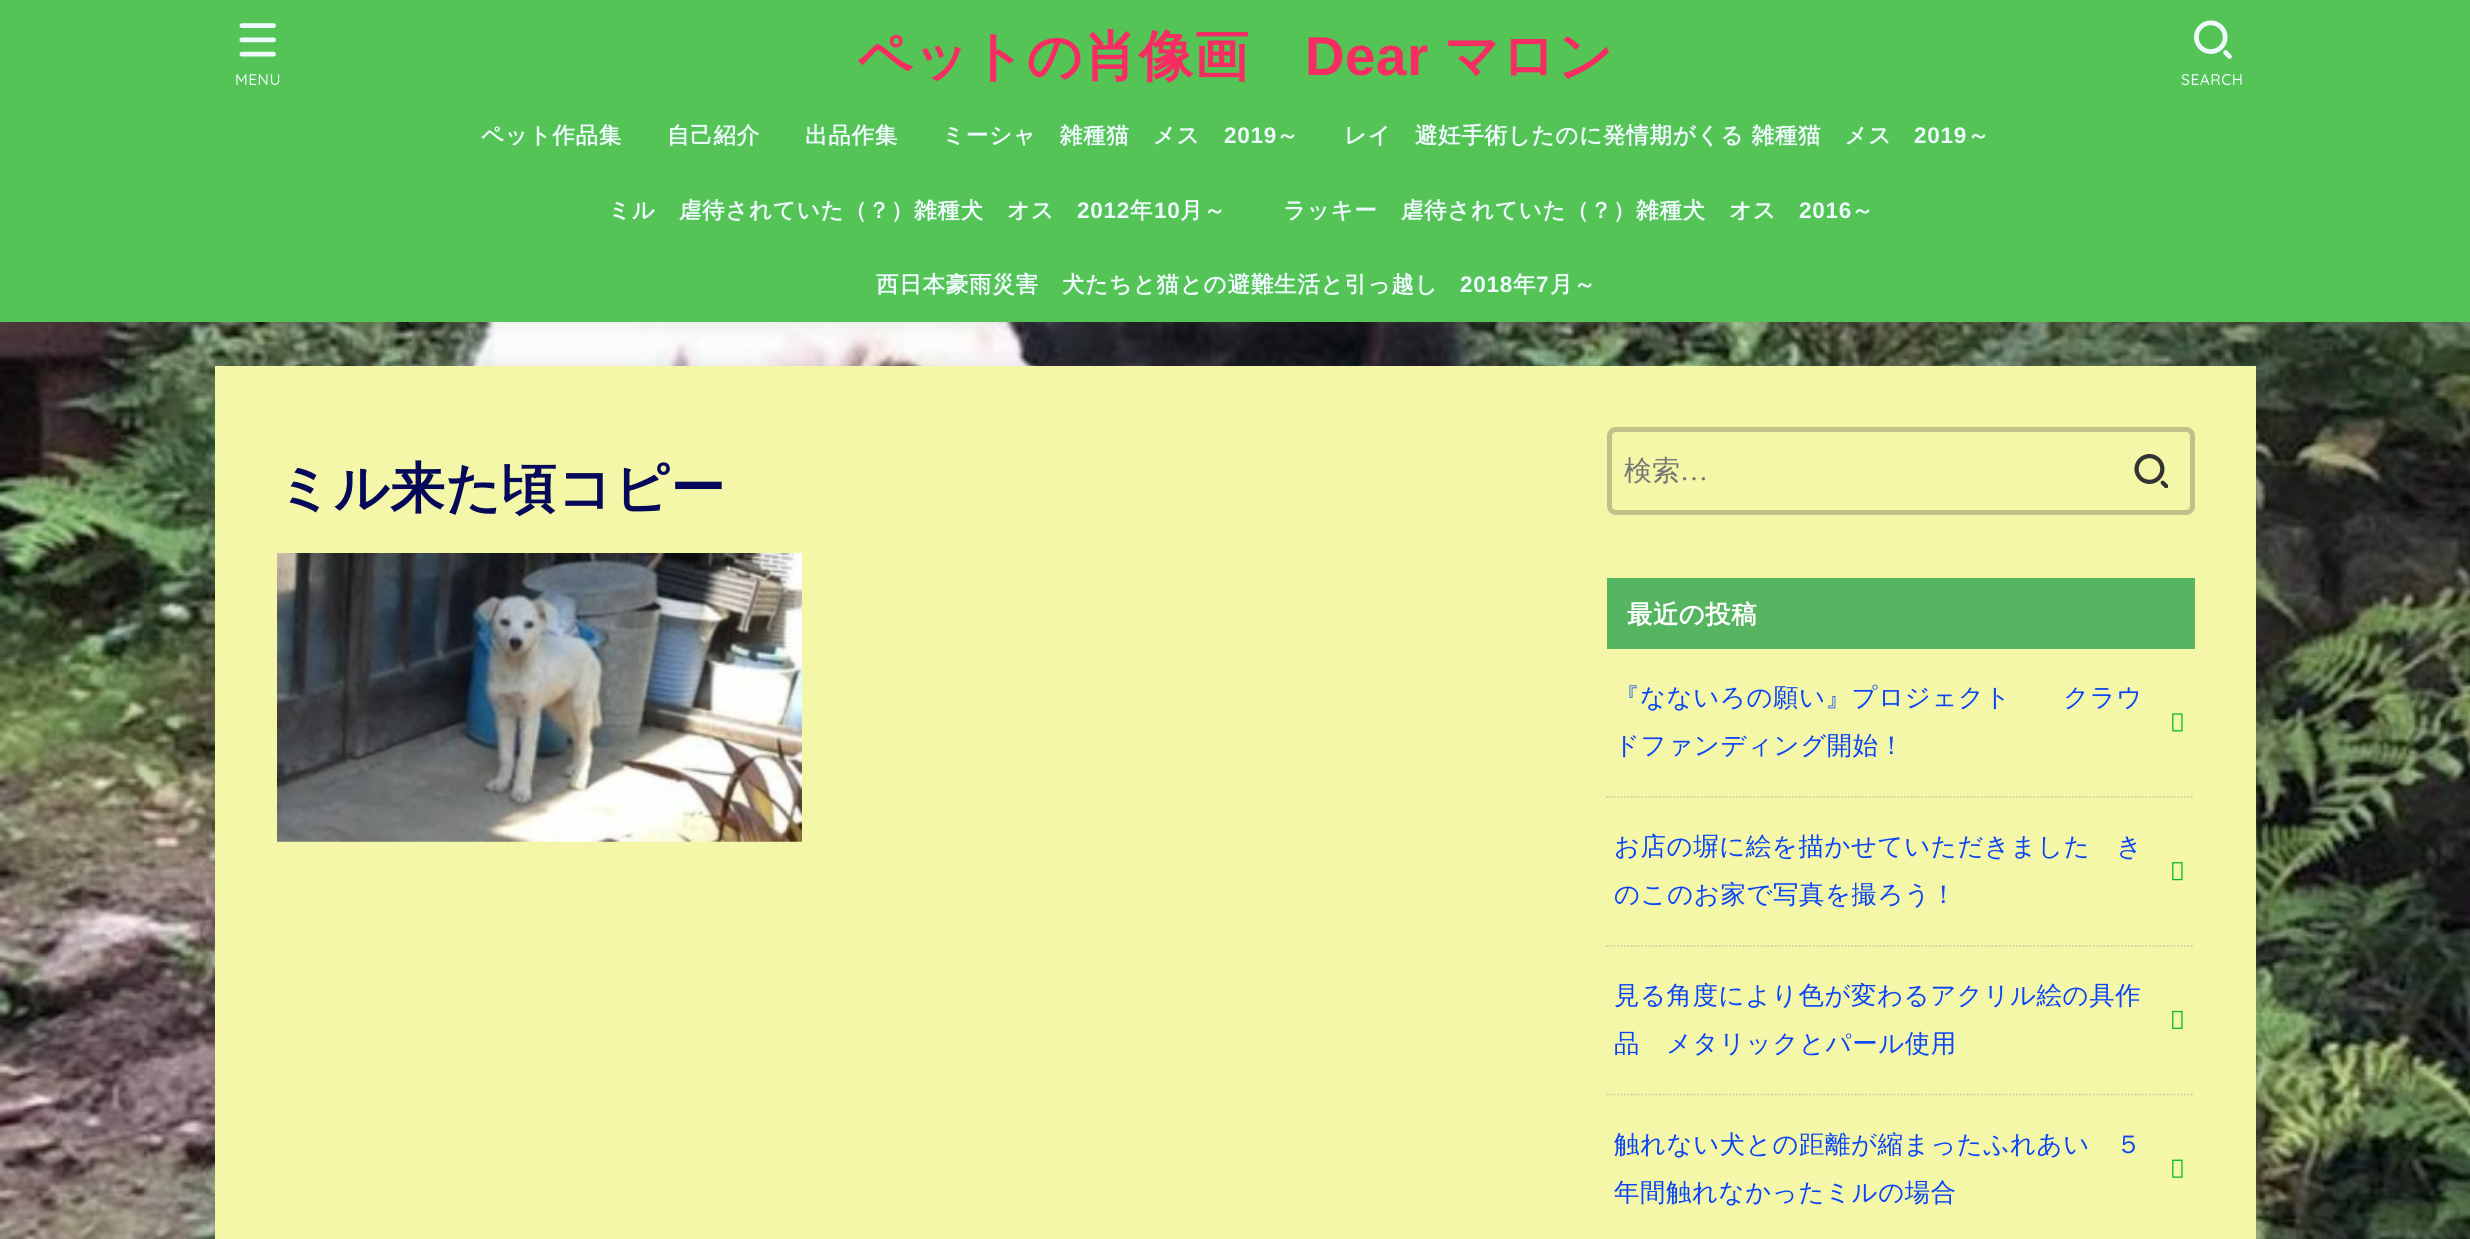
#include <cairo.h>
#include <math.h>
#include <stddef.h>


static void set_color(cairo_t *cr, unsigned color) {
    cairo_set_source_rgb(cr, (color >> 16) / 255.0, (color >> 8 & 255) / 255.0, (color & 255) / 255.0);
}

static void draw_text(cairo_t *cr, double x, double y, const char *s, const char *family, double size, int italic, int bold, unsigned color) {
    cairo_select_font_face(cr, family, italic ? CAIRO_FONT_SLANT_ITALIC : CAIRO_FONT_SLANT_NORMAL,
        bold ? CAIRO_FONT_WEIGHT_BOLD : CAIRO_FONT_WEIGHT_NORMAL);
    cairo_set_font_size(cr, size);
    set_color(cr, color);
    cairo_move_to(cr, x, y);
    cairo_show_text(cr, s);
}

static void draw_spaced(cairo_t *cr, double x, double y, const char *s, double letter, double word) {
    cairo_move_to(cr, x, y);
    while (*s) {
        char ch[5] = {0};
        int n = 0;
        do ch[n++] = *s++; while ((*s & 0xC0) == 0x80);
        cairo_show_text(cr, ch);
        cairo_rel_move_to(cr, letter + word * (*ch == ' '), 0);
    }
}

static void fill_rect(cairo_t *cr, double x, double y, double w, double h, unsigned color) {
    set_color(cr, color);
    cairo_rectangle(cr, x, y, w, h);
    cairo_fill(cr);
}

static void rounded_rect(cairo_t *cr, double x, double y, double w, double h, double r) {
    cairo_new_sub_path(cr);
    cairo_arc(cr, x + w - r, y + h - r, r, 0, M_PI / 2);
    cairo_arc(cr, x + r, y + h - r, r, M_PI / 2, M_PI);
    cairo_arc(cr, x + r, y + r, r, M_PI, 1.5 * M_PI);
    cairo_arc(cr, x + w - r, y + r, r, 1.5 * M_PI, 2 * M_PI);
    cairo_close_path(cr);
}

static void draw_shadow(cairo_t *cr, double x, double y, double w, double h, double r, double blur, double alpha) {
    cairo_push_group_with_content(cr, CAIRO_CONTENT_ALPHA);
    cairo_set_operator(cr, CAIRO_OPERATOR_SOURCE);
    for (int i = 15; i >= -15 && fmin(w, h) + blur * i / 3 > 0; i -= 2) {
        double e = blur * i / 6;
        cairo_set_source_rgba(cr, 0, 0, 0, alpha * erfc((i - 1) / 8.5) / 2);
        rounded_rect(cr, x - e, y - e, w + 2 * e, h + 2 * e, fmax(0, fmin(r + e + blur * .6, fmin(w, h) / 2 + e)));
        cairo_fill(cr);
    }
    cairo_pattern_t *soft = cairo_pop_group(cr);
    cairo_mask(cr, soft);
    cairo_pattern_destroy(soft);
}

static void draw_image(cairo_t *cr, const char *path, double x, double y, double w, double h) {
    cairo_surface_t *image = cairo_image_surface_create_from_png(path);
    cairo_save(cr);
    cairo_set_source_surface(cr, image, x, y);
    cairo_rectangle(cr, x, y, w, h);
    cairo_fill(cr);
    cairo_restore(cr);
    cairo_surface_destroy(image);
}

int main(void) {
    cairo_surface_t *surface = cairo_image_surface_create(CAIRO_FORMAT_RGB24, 2470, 1239);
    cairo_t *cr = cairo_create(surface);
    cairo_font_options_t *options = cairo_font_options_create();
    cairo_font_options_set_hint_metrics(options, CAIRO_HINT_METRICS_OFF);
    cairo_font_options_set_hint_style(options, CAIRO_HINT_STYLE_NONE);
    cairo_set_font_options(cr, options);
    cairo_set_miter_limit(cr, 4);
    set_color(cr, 0xFFFFFF);
    cairo_paint(cr);
    draw_image(cr, "assets/img1.png", 0, 322, 2470, 917);
    set_color(cr, 0x666666);
    draw_shadow(cr, 0, 0, 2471, 322, 0, 13, 0.2);
    fill_rect(cr, 0, 0, 2470, 322, 0x54C456);
    draw_image(cr, "assets/img2.png", 239, 23, 37, 34);
    cairo_select_font_face(cr, "Quicksand Medium", CAIRO_FONT_SLANT_NORMAL, CAIRO_FONT_WEIGHT_NORMAL);
    cairo_set_font_size(cr, 15.5);
    set_color(cr, 0xEDF9FC);
    draw_spaced(cr, 235, 85, "MENU", 0.5, 0);
    cairo_select_font_face(cr, "WenQuanYi Zen Hei", CAIRO_FONT_SLANT_NORMAL, CAIRO_FONT_WEIGHT_BOLD);
    cairo_set_font_size(cr, 54.75);
    set_color(cr, 0xF72C62);
    draw_spaced(cr, 857, 75, "ペットの肖像画", 0.5, 0);
    cairo_select_font_face(cr, "Liberation Sans", CAIRO_FONT_SLANT_NORMAL, CAIRO_FONT_WEIGHT_BOLD);
    draw_spaced(cr, 1305, 75, "Dear", 0.5, 0);
    cairo_select_font_face(cr, "WenQuanYi Zen Hei", CAIRO_FONT_SLANT_NORMAL, CAIRO_FONT_WEIGHT_BOLD);
    draw_spaced(cr, 1444, 75, "マロン", 0.5, 0);
    draw_image(cr, "assets/img3.png", 2194, 20, 38, 39);
    cairo_select_font_face(cr, "Quicksand Medium", CAIRO_FONT_SLANT_NORMAL, CAIRO_FONT_WEIGHT_NORMAL);
    cairo_set_font_size(cr, 15.5);
    set_color(cr, 0xEDF9FC);
    draw_spaced(cr, 2181, 85, "SEARCH", 0.5, 0);
    cairo_select_font_face(cr, "WenQuanYi Zen Hei", CAIRO_FONT_SLANT_NORMAL, CAIRO_FONT_WEIGHT_BOLD);
    cairo_set_font_size(cr, 22.5);
    draw_spaced(cr, 481, 143, "ペット作品集", 0.75, 0);
    draw_spaced(cr, 667, 143, "自己紹介", 0.75, 0);
    draw_spaced(cr, 805, 143, "出品作集", 0.75, 0);
    draw_spaced(cr, 942, 143, "ミーシャ　雑種猫　メス", 0.75, 0);
    cairo_select_font_face(cr, "Liberation Sans", CAIRO_FONT_SLANT_NORMAL, CAIRO_FONT_WEIGHT_BOLD);
    draw_spaced(cr, 1224, 143, "2019", 0.75, 0);
    cairo_select_font_face(cr, "WenQuanYi Zen Hei", CAIRO_FONT_SLANT_NORMAL, CAIRO_FONT_WEIGHT_BOLD);
    draw_spaced(cr, 1276, 143, "～", 0.75, 0);
    draw_spaced(cr, 1344, 143, "レイ　避妊手術したのに発情期がくる 雑種猫　メス", 0.75, 0);
    cairo_select_font_face(cr, "Liberation Sans", CAIRO_FONT_SLANT_NORMAL, CAIRO_FONT_WEIGHT_BOLD);
    draw_spaced(cr, 1914, 143, "2019", 0.75, 0);
    cairo_select_font_face(cr, "WenQuanYi Zen Hei", CAIRO_FONT_SLANT_NORMAL, CAIRO_FONT_WEIGHT_BOLD);
    draw_spaced(cr, 1967, 143, "～", 0.75, 0);
    draw_spaced(cr, 608, 218, "ミル　虐待されていた（？）雑種犬　オス", 0.75, 0);
    cairo_select_font_face(cr, "Liberation Sans", CAIRO_FONT_SLANT_NORMAL, CAIRO_FONT_WEIGHT_BOLD);
    draw_spaced(cr, 1077, 218, "2012", 0.75, 0);
    cairo_select_font_face(cr, "WenQuanYi Zen Hei", CAIRO_FONT_SLANT_NORMAL, CAIRO_FONT_WEIGHT_BOLD);
    draw_spaced(cr, 1130, 218, "年", 0.75, 0);
    cairo_select_font_face(cr, "Liberation Sans", CAIRO_FONT_SLANT_NORMAL, CAIRO_FONT_WEIGHT_BOLD);
    draw_spaced(cr, 1154, 218, "10", 0.75, 0);
    cairo_select_font_face(cr, "WenQuanYi Zen Hei", CAIRO_FONT_SLANT_NORMAL, CAIRO_FONT_WEIGHT_BOLD);
    draw_spaced(cr, 1180, 218, "月～", 0.75, 0);
    draw_spaced(cr, 1283, 218, "ラッキー　虐待されていた（？）雑種犬　オス", 0.75, 0);
    cairo_select_font_face(cr, "Liberation Sans", CAIRO_FONT_SLANT_NORMAL, CAIRO_FONT_WEIGHT_BOLD);
    draw_spaced(cr, 1799, 218, "2016", 0.75, 0);
    cairo_select_font_face(cr, "WenQuanYi Zen Hei", CAIRO_FONT_SLANT_NORMAL, CAIRO_FONT_WEIGHT_BOLD);
    draw_spaced(cr, 1851, 218, "～", 0.75, 0);
    draw_spaced(cr, 876, 292, "西日本豪雨災害　犬たちと猫との避難生活と引っ越し", 0.75, 0);
    cairo_select_font_face(cr, "Liberation Sans", CAIRO_FONT_SLANT_NORMAL, CAIRO_FONT_WEIGHT_BOLD);
    draw_spaced(cr, 1460, 292, "2018", 0.75, 0);
    cairo_select_font_face(cr, "WenQuanYi Zen Hei", CAIRO_FONT_SLANT_NORMAL, CAIRO_FONT_WEIGHT_BOLD);
    draw_spaced(cr, 1513, 292, "年", 0.75, 0);
    cairo_select_font_face(cr, "Liberation Sans", CAIRO_FONT_SLANT_NORMAL, CAIRO_FONT_WEIGHT_BOLD);
    draw_spaced(cr, 1536, 292, "7", 0.75, 0);
    cairo_select_font_face(cr, "WenQuanYi Zen Hei", CAIRO_FONT_SLANT_NORMAL, CAIRO_FONT_WEIGHT_BOLD);
    draw_spaced(cr, 1550, 292, "月～", 0.75, 0);
    set_color(cr, 0x666666);
    draw_shadow(cr, 215, 366, 2041, 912, 0, 13, 0.2);
    fill_rect(cr, 215, 366, 2041, 873, 0xF4F7A8);
    cairo_set_font_size(cr, 54.75);
    set_color(cr, 0x060959);
    draw_spaced(cr, 277, 507, "ミル来た頃コピー", 0.5, 0);
    draw_image(cr, "assets/img4.png", 277, 553, 525, 289);
    rounded_rect(cr, 1609.5, 429.5, 583, 83, 6.5);
    set_color(cr, 0xBFC189);
    cairo_set_line_width(cr, 5);
    cairo_stroke(cr);
    draw_text(cr, 1624, 480, "検索", "WenQuanYi Zen Hei Medium", 28, 0, 0, 0x757575);
    draw_text(cr, 1680, 480, "…", "Liberation Serif", 28, 0, 0, 0x757575);
    draw_image(cr, "assets/img5.png", 2134, 454, 34, 34);
    fill_rect(cr, 1607, 578, 588, 71, 0x56B561);
    cairo_select_font_face(cr, "WenQuanYi Zen Hei", CAIRO_FONT_SLANT_NORMAL, CAIRO_FONT_WEIGHT_BOLD);
    cairo_set_font_size(cr, 25.4);
    set_color(cr, 0xFFFFFF);
    draw_spaced(cr, 1627, 623, "最近の投稿", 0.5, 0);
    cairo_new_path(cr);
    cairo_move_to(cr, 1606.5, 797);
    cairo_line_to(cr, 2194.5, 797);
    set_color(cr, 0xD0D29B);
    cairo_set_line_width(cr, 1.8);
    cairo_set_dash(cr, (double[]){1.75, 1.75}, 2, 0);
    cairo_stroke(cr);
    cairo_select_font_face(cr, "WenQuanYi Zen Hei Medium", CAIRO_FONT_SLANT_NORMAL, CAIRO_FONT_WEIGHT_NORMAL);
    set_color(cr, 0x0945F7);
    draw_spaced(cr, 1614, 706, "『なないろの願い』プロジェクト　　クラウ", 0.6, 0);
    draw_spaced(cr, 1614, 754, "ドファンディング開始！", 0.6, 0);
    draw_image(cr, "assets/img6.png", 2172, 713, 11, 19);
    cairo_new_path(cr);
    cairo_move_to(cr, 1606.5, 946);
    cairo_line_to(cr, 2194.5, 946);
    set_color(cr, 0xD0D29B);
    cairo_stroke(cr);
    set_color(cr, 0x0945F7);
    draw_spaced(cr, 1614, 855, "お店の塀に絵を描かせていただきました　き", 0.6, 0);
    draw_spaced(cr, 1614, 903, "のこのお家で写真を撮ろう！", 0.6, 0);
    draw_image(cr, "assets/img7.png", 2172, 862, 11, 19);
    cairo_new_path(cr);
    cairo_move_to(cr, 1606.5, 1094.5);
    cairo_line_to(cr, 2194.5, 1094.5);
    set_color(cr, 0xD0D29B);
    cairo_stroke(cr);
    set_color(cr, 0x0945F7);
    draw_spaced(cr, 1614, 1004, "見る角度により色が変わるアクリル絵の具作", 0.6, 0);
    draw_spaced(cr, 1614, 1052, "品　メタリックとパール使用", 0.6, 0);
    draw_image(cr, "assets/img8.png", 2172, 1010, 11, 19);
    draw_spaced(cr, 1614, 1153, "触れない犬との距離が縮まったふれあい　５", 0.6, 0);
    draw_spaced(cr, 1614, 1201, "年間触れなかったミルの場合", 0.6, 0);
    draw_image(cr, "assets/img9.png", 2172, 1159, 11, 19);
    cairo_surface_write_to_png(surface, "output.png");
    cairo_font_options_destroy(options);
    cairo_destroy(cr);
    cairo_surface_destroy(surface);
    return 0;
}
